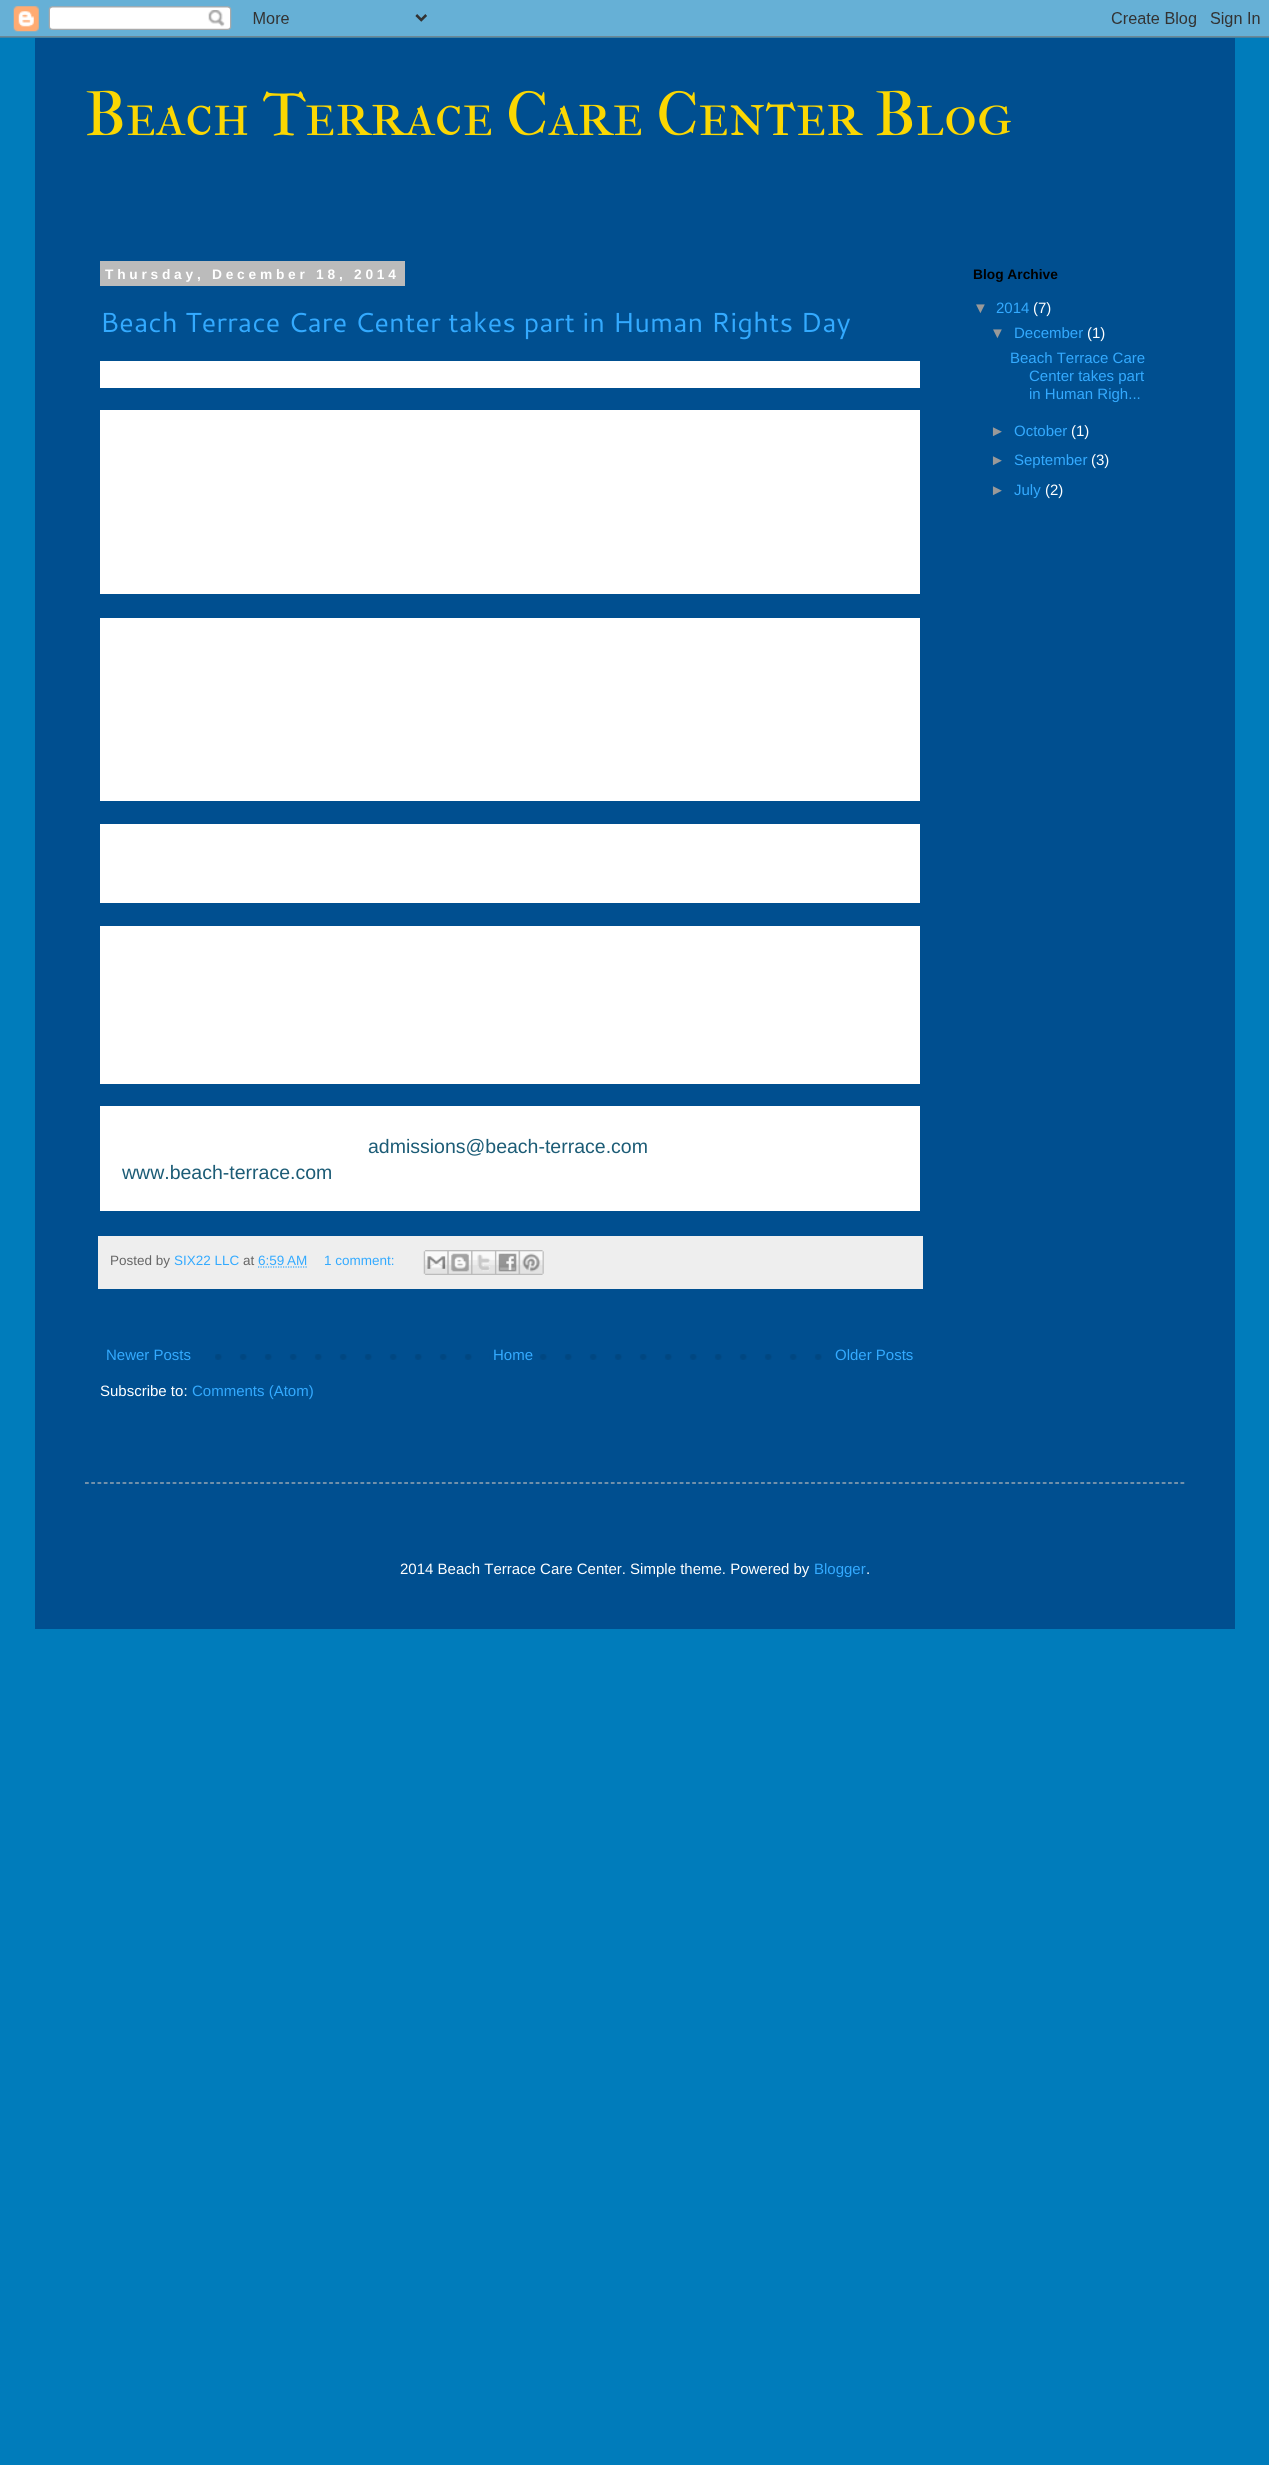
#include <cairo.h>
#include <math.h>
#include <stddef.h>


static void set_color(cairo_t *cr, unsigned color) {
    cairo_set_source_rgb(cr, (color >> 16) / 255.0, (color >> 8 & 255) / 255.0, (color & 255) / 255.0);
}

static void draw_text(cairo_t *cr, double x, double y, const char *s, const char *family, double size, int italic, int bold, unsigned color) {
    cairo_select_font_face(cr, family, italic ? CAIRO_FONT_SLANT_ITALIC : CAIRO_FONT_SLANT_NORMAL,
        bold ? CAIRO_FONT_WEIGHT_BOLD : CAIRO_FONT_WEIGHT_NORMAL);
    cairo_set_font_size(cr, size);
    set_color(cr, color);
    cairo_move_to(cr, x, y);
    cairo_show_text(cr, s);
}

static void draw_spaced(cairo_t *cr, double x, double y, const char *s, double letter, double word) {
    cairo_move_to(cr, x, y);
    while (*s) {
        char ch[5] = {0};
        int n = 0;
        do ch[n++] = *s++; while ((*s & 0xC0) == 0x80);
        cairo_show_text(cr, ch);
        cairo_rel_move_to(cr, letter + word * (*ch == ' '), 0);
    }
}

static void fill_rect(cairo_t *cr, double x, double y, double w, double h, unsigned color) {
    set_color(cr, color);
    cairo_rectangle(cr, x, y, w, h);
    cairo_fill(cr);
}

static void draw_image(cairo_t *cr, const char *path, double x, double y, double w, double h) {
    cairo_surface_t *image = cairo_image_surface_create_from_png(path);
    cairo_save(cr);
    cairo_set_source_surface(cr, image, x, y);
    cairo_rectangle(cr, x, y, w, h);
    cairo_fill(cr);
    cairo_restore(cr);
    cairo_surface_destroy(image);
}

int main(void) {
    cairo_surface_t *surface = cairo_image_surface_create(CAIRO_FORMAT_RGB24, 1269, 2465);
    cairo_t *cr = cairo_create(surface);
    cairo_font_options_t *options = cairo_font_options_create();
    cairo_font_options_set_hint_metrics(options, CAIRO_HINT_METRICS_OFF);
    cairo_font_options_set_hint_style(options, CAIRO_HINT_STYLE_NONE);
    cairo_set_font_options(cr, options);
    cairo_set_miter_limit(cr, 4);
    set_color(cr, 0x007CBB);
    cairo_paint(cr);
    draw_image(cr, "assets/img1.png", 0, 0, 1269, 38);
    fill_rect(cr, 35, 38, 1200, 1591, 0x004F90);
    draw_text(cr, 85, 135, "Beach Terrace Care Center Blog", "IM FELL French Canon SC", 62.5, 0, 0, 0xFBD702);
    fill_rect(cr, 100, 261, 305, 25, 0xBBBBBB);
    cairo_select_font_face(cr, "Liberation Sans", CAIRO_FONT_SLANT_NORMAL, CAIRO_FONT_WEIGHT_BOLD);
    cairo_set_font_size(cr, 13.75);
    set_color(cr, 0xFFFFFF);
    draw_spaced(cr, 105, 279, "Thursday, December 18, 2014", 3.75, 0);
    draw_text(cr, 100, 332, "Beach Terrace Care Center takes part in Human Rights Day", "Cantarell", 27.5, 0, 0, 0x33AAFF);
    fill_rect(cr, 100, 361, 820, 27, 0xFFFFFF);
    fill_rect(cr, 100, 410, 820, 184, 0xFFFFFF);
    fill_rect(cr, 100, 618, 820, 183, 0xFFFFFF);
    fill_rect(cr, 100, 824, 820, 79, 0xFFFFFF);
    fill_rect(cr, 100, 926, 820, 158, 0xFFFFFF);
    fill_rect(cr, 100, 1106, 820, 105, 0xFFFFFF);
    draw_text(cr, 368, 1153, "admissions@beach-terrace.com", "Liberation Sans", 19.5, 0, 0, 0x1C5C76);
    draw_text(cr, 122, 1179, "www.beach-terrace.com", "Liberation Sans", 19.5, 0, 0, 0x1C5C76);
    fill_rect(cr, 98, 1236, 825, 53, 0xEEEEEE);
    draw_text(cr, 110, 1265, "Posted by", "Liberation Sans", 13.5, 0, 0, 0x666666);
    draw_text(cr, 174, 1265, "SIX22 LLC", "Liberation Sans", 13.5, 0, 0, 0x33AAFF);
    draw_text(cr, 243, 1265, "at", "Liberation Sans", 13.5, 0, 0, 0x666666);
    draw_text(cr, 258, 1265, "6:59 AM", "Liberation Sans", 13.5, 0, 0, 0x33AAFF);
    cairo_new_path(cr);
    cairo_move_to(cr, 258, 1267);
    cairo_line_to(cr, 307, 1267);
    cairo_set_line_width(cr, 1.2);
    cairo_set_dash(cr, (double[]){1.25, 1.25}, 2, 0);
    cairo_stroke(cr);
    draw_text(cr, 324, 1265, "1 comment:", "Liberation Sans", 13.5, 0, 0, 0x33AAFF);
    draw_image(cr, "assets/img2.png", 423, 1250, 25, 25);
    draw_image(cr, "assets/img3.png", 447, 1250, 25, 25);
    draw_image(cr, "assets/img4.png", 471, 1250, 24, 25);
    draw_image(cr, "assets/img5.png", 495, 1250, 24, 25);
    draw_image(cr, "assets/img6.png", 518, 1250, 26, 25);
    draw_image(cr, "assets/img7.png", 215, 1354, 607, 6);
    draw_text(cr, 106, 1360, "Newer Posts", "Liberation Sans", 15, 0, 0, 0x33AAFF);
    fill_rect(cr, 490, 1354, 32, 6, 0x004F90);
    draw_text(cr, 493, 1360, "Home", "Liberation Sans", 15, 0, 0, 0x33AAFF);
    draw_text(cr, 835, 1360, "Older Posts", "Liberation Sans", 15, 0, 0, 0x33AAFF);
    draw_text(cr, 100, 1396, "Subscribe to:", "Liberation Sans", 15, 0, 0, 0xFFFFFF);
    draw_text(cr, 192, 1396, "Comments (Atom)", "Liberation Sans", 15, 0, 0, 0x33AAFF);
    draw_text(cr, 973, 279, "Blog Archive", "Liberation Sans", 13.75, 0, 1, 0x000000);
    draw_text(cr, 973, 313, "▼", "Liberation Sans", 15, 0, 0, 0x999999);
    draw_text(cr, 996, 313, "2014", "Liberation Sans", 15, 0, 0, 0x33AAFF);
    draw_text(cr, 1033, 313, "(7)", "Liberation Sans", 15, 0, 0, 0xFFFFFF);
    draw_text(cr, 990, 338, "▼", "Liberation Sans", 15, 0, 0, 0x999999);
    draw_text(cr, 1014, 338, "December", "Liberation Sans", 15, 0, 0, 0x33AAFF);
    draw_text(cr, 1087, 338, "(1)", "Liberation Sans", 15, 0, 0, 0xFFFFFF);
    draw_text(cr, 1010, 363, "Beach Terrace Care", "Liberation Sans", 15, 0, 0, 0x33AAFF);
    draw_text(cr, 1029, 381, "Center takes part", "Liberation Sans", 15, 0, 0, 0x33AAFF);
    draw_text(cr, 1029, 399, "in Human Righ...", "Liberation Sans", 15, 0, 0, 0x33AAFF);
    draw_text(cr, 990, 436, "►", "Liberation Sans", 15, 0, 0, 0x999999);
    draw_text(cr, 1014, 436, "October", "Liberation Sans", 15, 0, 0, 0x33AAFF);
    draw_text(cr, 1071, 436, "(1)", "Liberation Sans", 15, 0, 0, 0xFFFFFF);
    draw_text(cr, 990, 465, "►", "Liberation Sans", 15, 0, 0, 0x999999);
    draw_text(cr, 1014, 465, "September", "Liberation Sans", 15, 0, 0, 0x33AAFF);
    draw_text(cr, 1091, 465, "(3)", "Liberation Sans", 15, 0, 0, 0xFFFFFF);
    draw_text(cr, 990, 495, "►", "Liberation Sans", 15, 0, 0, 0x999999);
    draw_text(cr, 1014, 495, "July", "Liberation Sans", 15, 0, 0, 0x33AAFF);
    draw_text(cr, 1045, 495, "(2)", "Liberation Sans", 15, 0, 0, 0xFFFFFF);
    cairo_new_path(cr);
    cairo_move_to(cr, 85, 1483);
    cairo_line_to(cr, 1185, 1483);
    set_color(cr, 0xBBBBBB);
    cairo_set_dash(cr, (double[]){3.75, 2.51}, 2, 0);
    cairo_stroke(cr);
    draw_text(cr, 400, 1574, "2014 Beach Terrace Care Center. Simple theme. Powered by", "Liberation Sans", 15, 0, 0, 0xFFFFFF);
    draw_text(cr, 814, 1574, "Blogger", "Liberation Sans", 15, 0, 0, 0x33AAFF);
    draw_text(cr, 866, 1574, ".", "Liberation Sans", 15, 0, 0, 0xFFFFFF);
    cairo_surface_write_to_png(surface, "output.png");
    cairo_font_options_destroy(options);
    cairo_destroy(cr);
    cairo_surface_destroy(surface);
    return 0;
}
